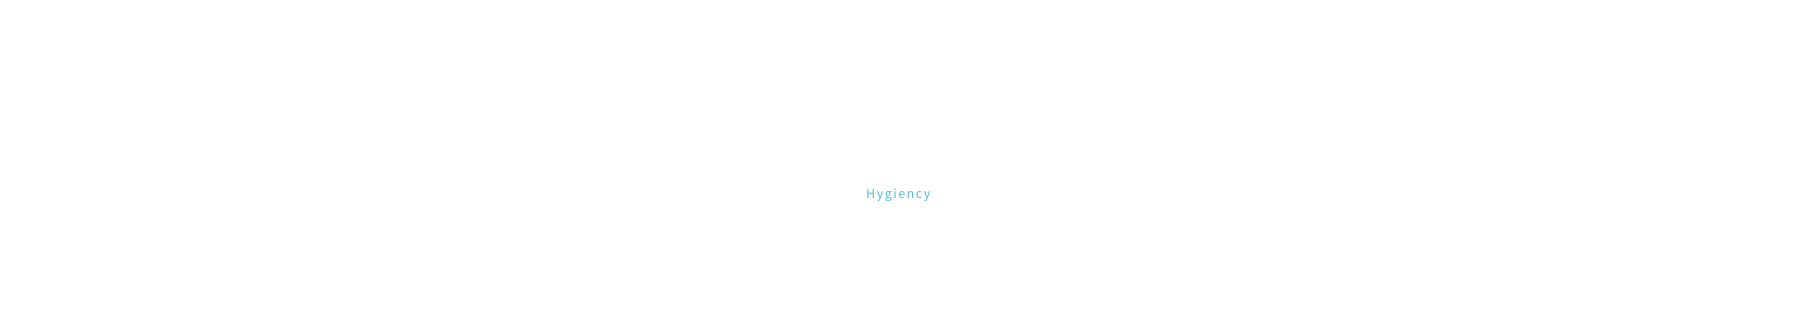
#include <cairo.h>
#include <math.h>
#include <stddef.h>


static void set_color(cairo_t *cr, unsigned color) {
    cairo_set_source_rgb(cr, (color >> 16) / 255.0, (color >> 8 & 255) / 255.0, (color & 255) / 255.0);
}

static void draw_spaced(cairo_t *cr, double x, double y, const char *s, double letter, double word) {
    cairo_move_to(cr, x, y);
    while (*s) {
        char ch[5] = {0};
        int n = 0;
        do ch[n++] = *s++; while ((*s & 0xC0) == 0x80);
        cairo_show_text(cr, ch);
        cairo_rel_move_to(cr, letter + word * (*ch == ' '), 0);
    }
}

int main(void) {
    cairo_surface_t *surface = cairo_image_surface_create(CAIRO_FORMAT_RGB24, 1796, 319);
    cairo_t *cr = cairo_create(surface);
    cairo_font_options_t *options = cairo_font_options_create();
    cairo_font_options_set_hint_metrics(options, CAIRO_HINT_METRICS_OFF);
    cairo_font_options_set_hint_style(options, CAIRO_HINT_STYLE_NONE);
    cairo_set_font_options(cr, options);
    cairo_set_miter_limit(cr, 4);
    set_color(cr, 0xFFFFFF);
    cairo_paint(cr);
    cairo_select_font_face(cr, "Source Sans Pro", CAIRO_FONT_SLANT_NORMAL, CAIRO_FONT_WEIGHT_NORMAL);
    cairo_set_font_size(cr, 14);
    set_color(cr, 0x59BED9);
    draw_spaced(cr, 866, 198, "Hygiency", 1.5, 0);
    cairo_surface_write_to_png(surface, "output.png");
    cairo_font_options_destroy(options);
    cairo_destroy(cr);
    cairo_surface_destroy(surface);
    return 0;
}
